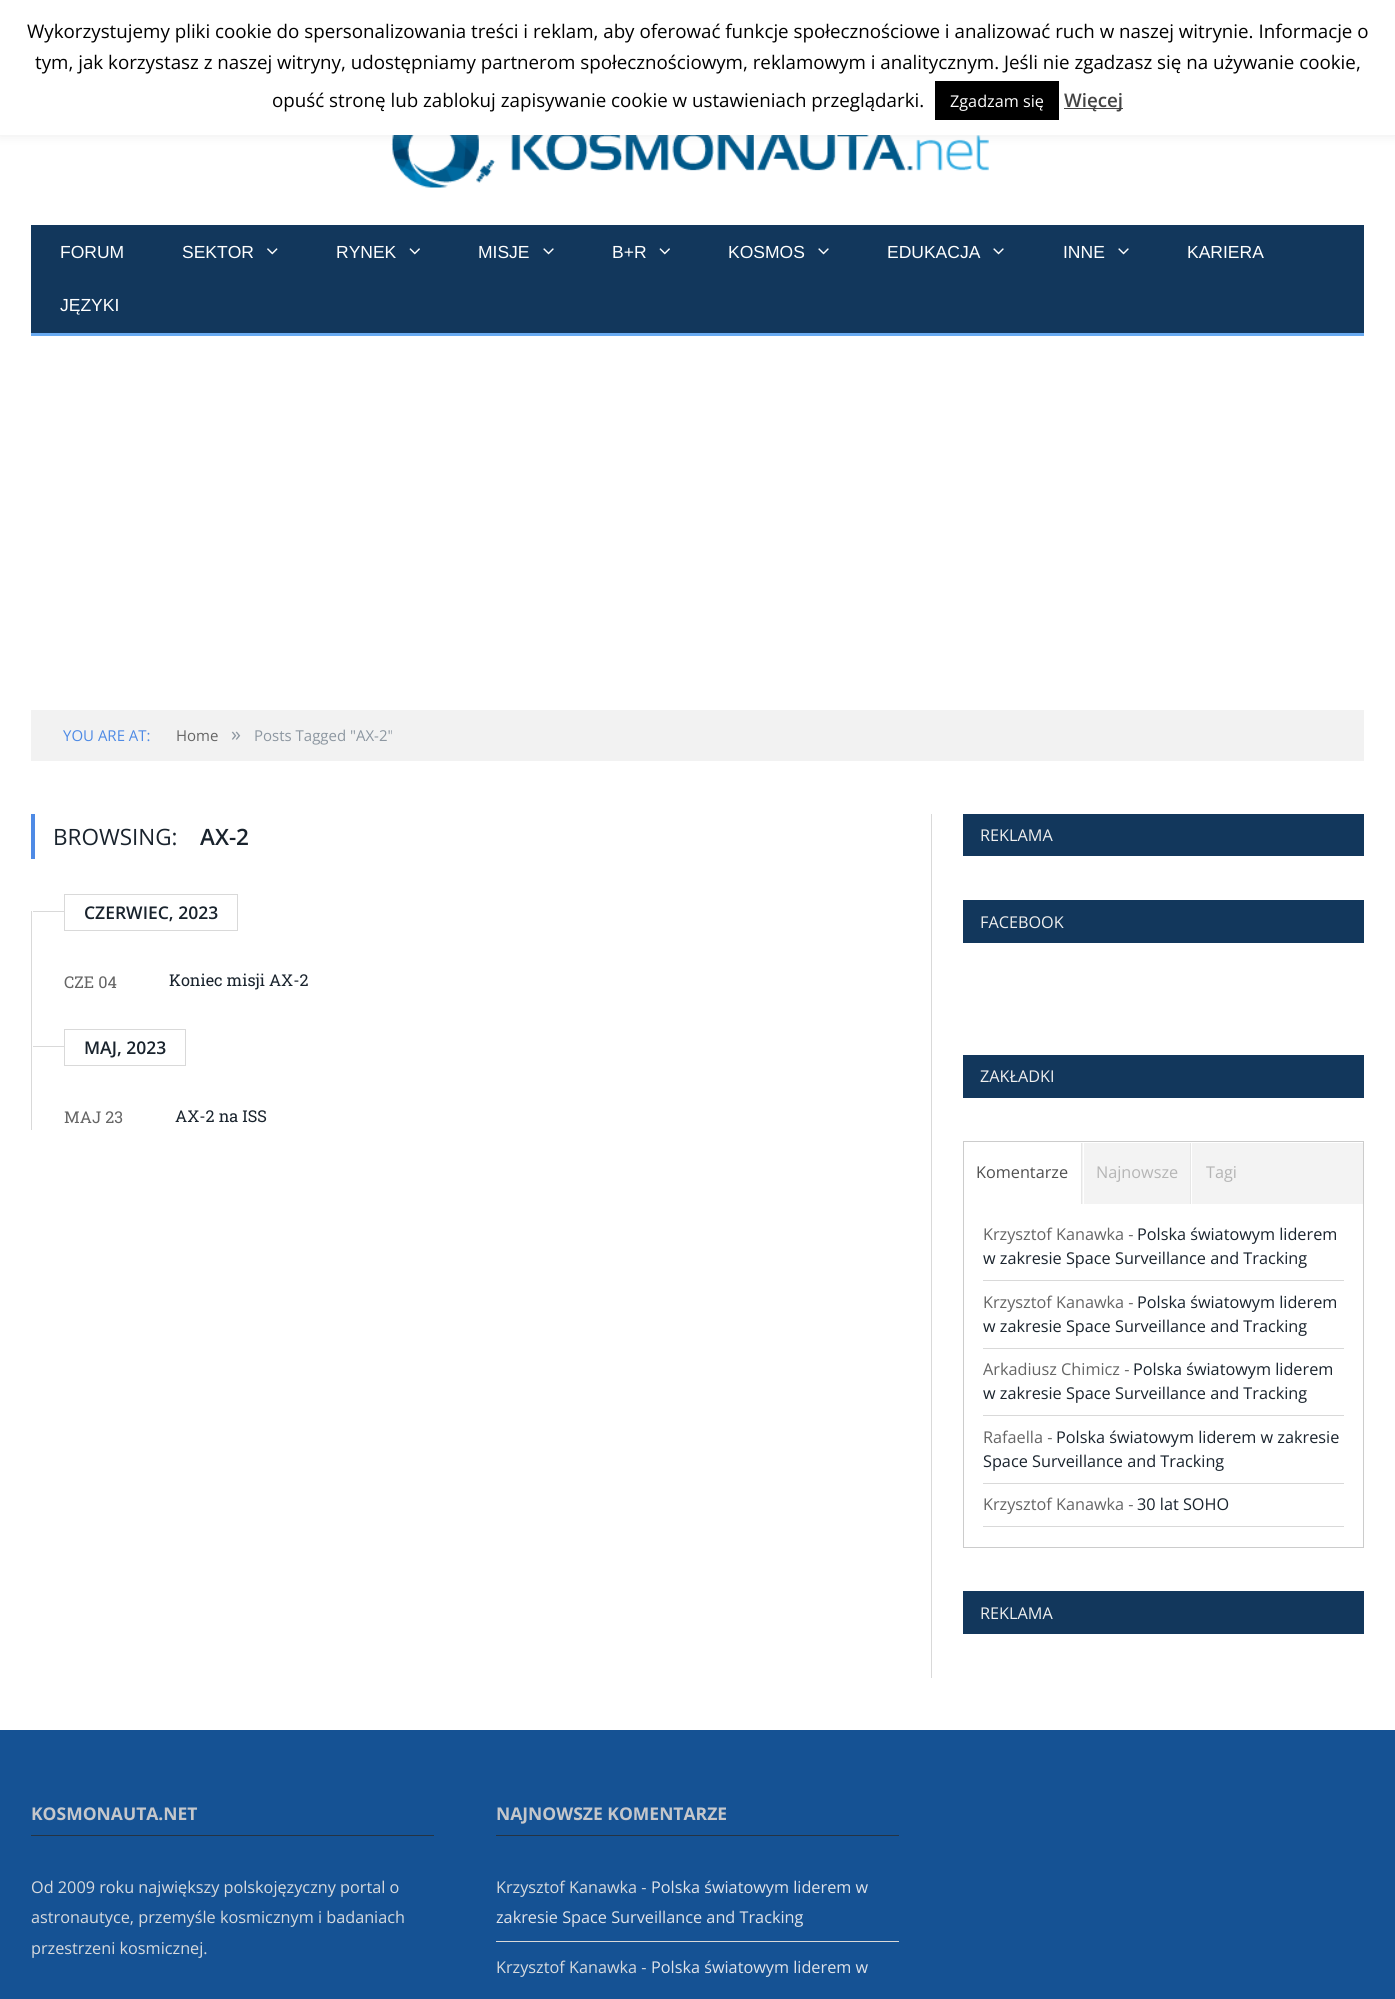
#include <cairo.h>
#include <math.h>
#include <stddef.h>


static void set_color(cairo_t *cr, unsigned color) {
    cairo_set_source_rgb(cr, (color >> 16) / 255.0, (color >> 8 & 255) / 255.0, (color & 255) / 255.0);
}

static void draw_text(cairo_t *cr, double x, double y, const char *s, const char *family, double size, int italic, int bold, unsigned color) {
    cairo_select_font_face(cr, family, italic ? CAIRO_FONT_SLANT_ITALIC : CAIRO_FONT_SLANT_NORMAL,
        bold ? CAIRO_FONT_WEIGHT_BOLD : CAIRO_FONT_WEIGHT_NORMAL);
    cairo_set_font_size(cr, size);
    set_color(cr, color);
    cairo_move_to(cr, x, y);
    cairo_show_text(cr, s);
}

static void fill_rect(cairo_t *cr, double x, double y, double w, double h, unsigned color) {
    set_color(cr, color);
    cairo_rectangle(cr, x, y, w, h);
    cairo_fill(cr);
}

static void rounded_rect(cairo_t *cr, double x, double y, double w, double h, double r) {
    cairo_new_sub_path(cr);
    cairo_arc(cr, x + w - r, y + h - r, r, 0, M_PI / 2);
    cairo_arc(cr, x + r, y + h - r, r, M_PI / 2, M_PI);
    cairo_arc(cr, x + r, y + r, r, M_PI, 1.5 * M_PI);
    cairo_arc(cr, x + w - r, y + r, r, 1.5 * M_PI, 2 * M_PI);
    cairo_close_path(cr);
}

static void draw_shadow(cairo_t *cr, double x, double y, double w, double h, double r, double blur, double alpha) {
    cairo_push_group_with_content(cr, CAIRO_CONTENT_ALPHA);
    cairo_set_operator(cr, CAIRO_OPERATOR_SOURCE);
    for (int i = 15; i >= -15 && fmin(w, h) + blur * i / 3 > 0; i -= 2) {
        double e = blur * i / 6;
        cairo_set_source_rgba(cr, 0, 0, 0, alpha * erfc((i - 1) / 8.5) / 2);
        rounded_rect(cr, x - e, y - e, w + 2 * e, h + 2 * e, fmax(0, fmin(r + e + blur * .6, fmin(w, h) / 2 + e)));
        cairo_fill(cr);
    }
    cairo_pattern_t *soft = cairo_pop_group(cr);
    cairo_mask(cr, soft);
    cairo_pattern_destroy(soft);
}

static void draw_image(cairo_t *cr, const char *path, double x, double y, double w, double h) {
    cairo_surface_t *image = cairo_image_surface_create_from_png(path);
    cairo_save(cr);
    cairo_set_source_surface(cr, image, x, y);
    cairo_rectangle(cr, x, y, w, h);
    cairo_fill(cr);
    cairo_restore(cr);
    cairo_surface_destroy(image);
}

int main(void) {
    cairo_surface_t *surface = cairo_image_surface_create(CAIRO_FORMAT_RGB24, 1395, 1999);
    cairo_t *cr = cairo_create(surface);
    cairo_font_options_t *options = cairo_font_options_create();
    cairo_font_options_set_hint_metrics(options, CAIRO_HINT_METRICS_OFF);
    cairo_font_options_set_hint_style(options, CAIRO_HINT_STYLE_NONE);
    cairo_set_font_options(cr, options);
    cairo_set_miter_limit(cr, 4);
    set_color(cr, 0xFFFFFF);
    cairo_paint(cr);
    draw_image(cr, "assets/img1.png", 391, 135, 598, 53);
    set_color(cr, 0xACABAB);
    draw_shadow(cr, 0, -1, 1395, 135, 0, 6, 0.3);
    fill_rect(cr, 0, 0, 1395, 135, 0xFFFFFF);
    draw_text(cr, 27, 38, "Wykorzystujemy pliki cookie do spersonalizowania treści i reklam, aby oferować funkcje społecznościowe i analizować ruch w naszej witrynie. Informacje o", "Open Sans", 18.75, 0, 0, 0x000000);
    draw_text(cr, 35, 69, "tym, jak korzystasz z naszej witryny, udostępniamy partnerom społecznościowym, reklamowym i analitycznym. Jeśli nie zgadzasz się na używanie cookie,", "Open Sans", 18.75, 0, 0, 0x000000);
    draw_text(cr, 272, 107, "opuść stronę lub zablokuj zapisywanie cookie w ustawieniach przeglądarki.", "Open Sans", 18.75, 0, 0, 0x000000);
    fill_rect(cr, 935, 81, 124, 39, 0x000000);
    draw_text(cr, 950, 107, "Zgadzam się", "Open Sans", 16.25, 0, 0, 0xFFFFFF);
    fill_rect(cr, 1064, 108, 59, 1, 0x444444);
    draw_text(cr, 1064, 107, "Więcej", "Open Sans SemiBold", 18.75, 0, 0, 0x444444);
    fill_rect(cr, 31, 225, 1333, 108, 0x12375C);
    fill_rect(cr, 31, 333, 1333, 3, 0x68AAF1);
    draw_text(cr, 60, 258, "FORUM", "Liberation Sans", 17.5, 0, 0, 0xFFFFFF);
    draw_text(cr, 182, 258, "SEKTOR", "Liberation Sans", 17.5, 0, 0, 0xFFFFFF);
    draw_image(cr, "assets/img2.png", 267, 248, 11, 7);
    draw_text(cr, 336, 258, "RYNEK", "Liberation Sans", 17.5, 0, 0, 0xFFFFFF);
    draw_image(cr, "assets/img3.png", 409, 248, 11, 7);
    draw_text(cr, 478, 258, "MISJE", "Liberation Sans", 17.5, 0, 0, 0xFFFFFF);
    draw_image(cr, "assets/img4.png", 543, 248, 11, 7);
    draw_text(cr, 612, 258, "B+R", "Liberation Sans", 17.5, 0, 0, 0xFFFFFF);
    draw_image(cr, "assets/img3.png", 659, 248, 11, 7);
    draw_text(cr, 728, 258, "KOSMOS", "Liberation Sans", 17.5, 0, 0, 0xFFFFFF);
    draw_image(cr, "assets/img4.png", 818, 248, 11, 7);
    draw_text(cr, 887, 258, "EDUKACJA", "Liberation Sans", 17.5, 0, 0, 0xFFFFFF);
    draw_image(cr, "assets/img4.png", 993, 248, 11, 7);
    draw_text(cr, 1063, 258, "INNE", "Liberation Sans", 17.5, 0, 0, 0xFFFFFF);
    draw_image(cr, "assets/img4.png", 1118, 248, 11, 7);
    draw_text(cr, 1187, 258, "KARIERA", "Liberation Sans", 17.5, 0, 0, 0xFFFFFF);
    draw_text(cr, 60, 311, "JĘZYKI", "Liberation Sans", 17.5, 0, 0, 0xFFFFFF);
    fill_rect(cr, 31, 710, 1333, 51, 0xF2F2F2);
    draw_text(cr, 63, 741, "YOU ARE AT:", "Open Sans", 15, 0, 0, 0x4E8AE5);
    draw_text(cr, 176, 741, "Home", "Open Sans", 15, 0, 0, 0x656565);
    draw_text(cr, 231, 741, "»", "Open Sans", 20, 0, 0, 0x8D97A1);
    draw_text(cr, 254, 741, "Posts Tagged \"AX-2\"", "Open Sans", 15, 0, 0, 0x8D97A1);
    fill_rect(cr, 31, 814, 4, 45, 0x4E8AE5);
    draw_text(cr, 53, 845, "BROWSING:", "Open Sans", 22.5, 0, 0, 0x19232D);
    draw_text(cr, 200, 845, "AX-2", "Open Sans SemiBold", 22.5, 0, 0, 0x19232D);
    fill_rect(cr, 31, 911, 1, 219, 0xD9D9D9);
    cairo_rectangle(cr, 64.5, 894.5, 173, 36);
    cairo_set_line_width(cr, 1);
    cairo_stroke(cr);
    fill_rect(cr, 33, 911, 31, 1, 0xD9D9D9);
    draw_text(cr, 84, 919, "CZERWIEC, 2023", "Open Sans SemiBold", 17.5, 0, 0, 0x19232D);
    draw_text(cr, 64, 988, "CZE 04", "Roboto Slab", 16.25, 0, 0, 0x656565);
    draw_text(cr, 169, 986, "Koniec misji AX-2", "Roboto Slab", 16.25, 0, 0, 0x19232D);
    cairo_rectangle(cr, 64.5, 1029.5, 121, 36);
    set_color(cr, 0xD9D9D9);
    cairo_stroke(cr);
    fill_rect(cr, 33, 1046, 31, 1, 0xD9D9D9);
    draw_text(cr, 84, 1054, "MAJ, 2023", "Open Sans SemiBold", 17.5, 0, 0, 0x19232D);
    draw_text(cr, 64, 1123, "MAJ 23", "Roboto Slab", 16.25, 0, 0, 0x656565);
    draw_text(cr, 175, 1122, "AX-2 na ISS", "Roboto Slab", 16.25, 0, 0, 0x19232D);
    fill_rect(cr, 931, 814, 1, 864, 0xD9D9D9);
    fill_rect(cr, 963, 814, 401, 42, 0x12375C);
    draw_text(cr, 980, 841, "REKLAMA", "Open Sans", 16.25, 0, 0, 0xEFEFEF);
    fill_rect(cr, 963, 900, 401, 43, 0x12375C);
    draw_text(cr, 980, 928, "FACEBOOK", "Open Sans", 16.25, 0, 0, 0xEFEFEF);
    fill_rect(cr, 963, 1055, 401, 43, 0x12375C);
    draw_text(cr, 980, 1082, "ZAKŁADKI", "Open Sans", 16.25, 0, 0, 0xEFEFEF);
    cairo_rectangle(cr, 963.5, 1141.5, 400, 406);
    set_color(cr, 0xCCCCCC);
    cairo_stroke(cr);
    fill_rect(cr, 1082, 1143, 281, 61, 0xF3F3F3);
    fill_rect(cr, 1081, 1143, 1, 61, 0xE6E6E6);
    draw_text(cr, 976, 1178, "Komentarze", "Open Sans", 16.25, 0, 0, 0x4F4F4F);
    fill_rect(cr, 1190, 1143, 1, 61, 0xE6E6E6);
    fill_rect(cr, 1083, 1143, 1, 61, 0xFFFFFF);
    draw_text(cr, 1096, 1178, "Najnowsze", "Open Sans", 16.25, 0, 0, 0xB5B5B5);
    fill_rect(cr, 1191, 1143, 1, 61, 0xFFFFFF);
    draw_text(cr, 1206, 1178, "Tagi", "Open Sans", 16.25, 0, 0, 0xB5B5B5);
    fill_rect(cr, 983, 1280, 361, 1, 0xD9D9D9);
    draw_text(cr, 983, 1240, "Krzysztof Kanawka -", "Open Sans", 16.25, 0, 0, 0x656565);
    draw_text(cr, 1137, 1240, "Polska światowym liderem", "Open Sans", 16.25, 0, 0, 0x19232D);
    draw_text(cr, 983, 1264, "w zakresie Space Surveillance and Tracking", "Open Sans", 16.25, 0, 0, 0x19232D);
    fill_rect(cr, 983, 1348, 361, 1, 0xD9D9D9);
    draw_text(cr, 983, 1308, "Krzysztof Kanawka -", "Open Sans", 16.25, 0, 0, 0x656565);
    draw_text(cr, 1137, 1308, "Polska światowym liderem", "Open Sans", 16.25, 0, 0, 0x19232D);
    draw_text(cr, 983, 1332, "w zakresie Space Surveillance and Tracking", "Open Sans", 16.25, 0, 0, 0x19232D);
    fill_rect(cr, 983, 1415, 361, 1, 0xD9D9D9);
    draw_text(cr, 983, 1375, "Arkadiusz Chimicz -", "Open Sans", 16.25, 0, 0, 0x656565);
    draw_text(cr, 1133, 1375, "Polska światowym liderem", "Open Sans", 16.25, 0, 0, 0x19232D);
    draw_text(cr, 983, 1399, "w zakresie Space Surveillance and Tracking", "Open Sans", 16.25, 0, 0, 0x19232D);
    fill_rect(cr, 983, 1483, 361, 1, 0xD9D9D9);
    draw_text(cr, 983, 1443, "Rafaella -", "Open Sans", 16.25, 0, 0, 0x656565);
    draw_text(cr, 1056, 1443, "Polska światowym liderem w zakresie", "Open Sans", 16.25, 0, 0, 0x19232D);
    draw_text(cr, 983, 1467, "Space Surveillance and Tracking", "Open Sans", 16.25, 0, 0, 0x19232D);
    fill_rect(cr, 983, 1526, 361, 1, 0xD9D9D9);
    draw_text(cr, 983, 1510, "Krzysztof Kanawka -", "Open Sans", 16.25, 0, 0, 0x656565);
    draw_text(cr, 1137, 1510, "30 lat SOHO", "Open Sans", 16.25, 0, 0, 0x19232D);
    fill_rect(cr, 963, 1591, 401, 43, 0x12375C);
    draw_text(cr, 980, 1619, "REKLAMA", "Open Sans", 16.25, 0, 0, 0xEFEFEF);
    fill_rect(cr, 0, 1730, 1395, 269, 0x155294);
    fill_rect(cr, 31, 1835, 403, 1, 0x253443);
    draw_text(cr, 31, 1820, "KOSMONAUTA.NET", "Open Sans", 17.5, 0, 1, 0xC5C7CB);
    draw_text(cr, 31, 1893, "Od 2009 roku największy polskojęzyczny portal o", "Open Sans", 16.25, 0, 0, 0xD7DADE);
    draw_text(cr, 31, 1923, "astronautyce, przemyśle kosmicznym i badaniach", "Open Sans", 16.25, 0, 0, 0xD7DADE);
    draw_text(cr, 31, 1954, "przestrzeni kosmicznej.", "Open Sans", 16.25, 0, 0, 0xD7DADE);
    fill_rect(cr, 496, 1835, 403, 1, 0x253443);
    draw_text(cr, 496, 1820, "NAJNOWSZE KOMENTARZE", "Open Sans", 17.5, 0, 1, 0xC5C7CB);
    fill_rect(cr, 496, 1941, 403, 1, 0xD9D9D9);
    draw_text(cr, 496, 1893, "Krzysztof Kanawka -", "Open Sans", 16.25, 0, 0, 0xD7DADE);
    draw_text(cr, 651, 1893, "Polska światowym liderem w", "Open Sans", 16.25, 0, 0, 0xE0E3E9);
    draw_text(cr, 496, 1923, "zakresie Space Surveillance and Tracking", "Open Sans", 16.25, 0, 0, 0xE0E3E9);
    draw_text(cr, 496, 1973, "Krzysztof Kanawka -", "Open Sans", 16.25, 0, 0, 0xD7DADE);
    draw_text(cr, 651, 1973, "Polska światowym liderem w", "Open Sans", 16.25, 0, 0, 0xE0E3E9);
    cairo_surface_write_to_png(surface, "output.png");
    cairo_font_options_destroy(options);
    cairo_destroy(cr);
    cairo_surface_destroy(surface);
    return 0;
}
